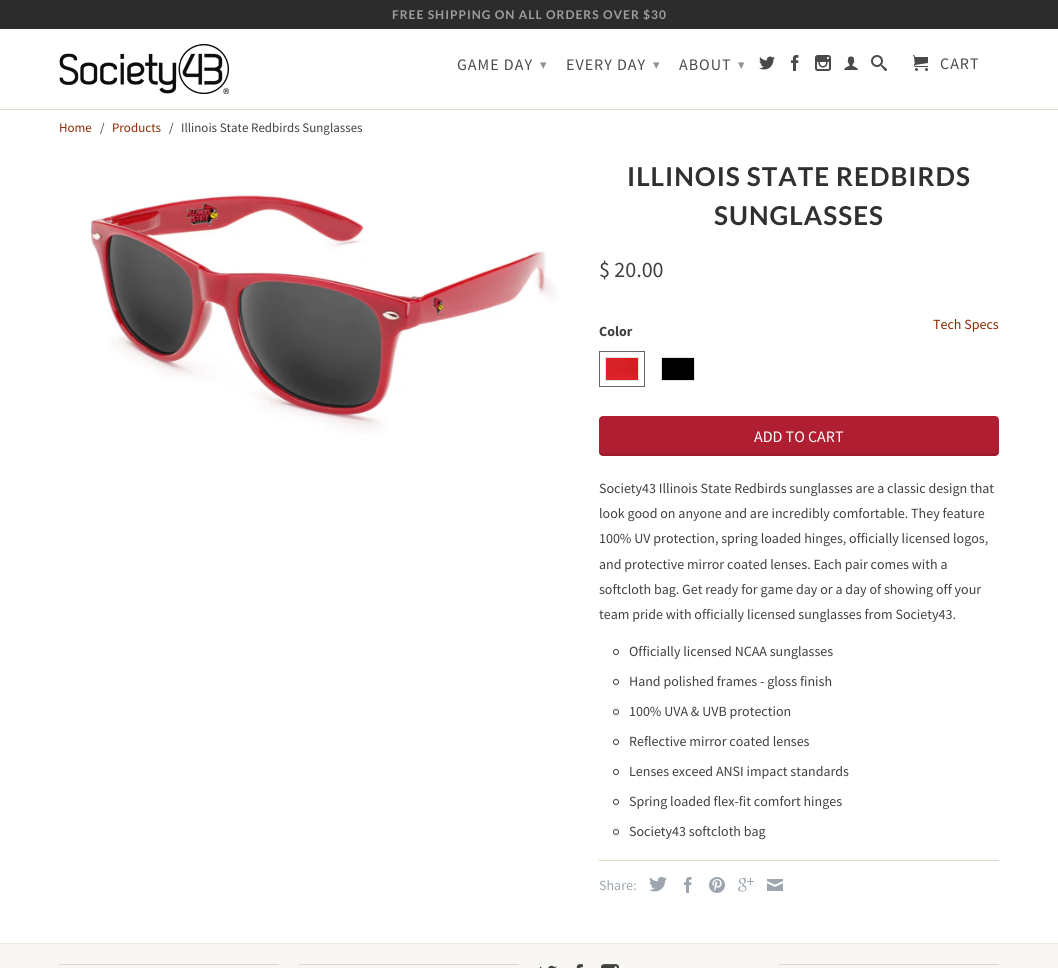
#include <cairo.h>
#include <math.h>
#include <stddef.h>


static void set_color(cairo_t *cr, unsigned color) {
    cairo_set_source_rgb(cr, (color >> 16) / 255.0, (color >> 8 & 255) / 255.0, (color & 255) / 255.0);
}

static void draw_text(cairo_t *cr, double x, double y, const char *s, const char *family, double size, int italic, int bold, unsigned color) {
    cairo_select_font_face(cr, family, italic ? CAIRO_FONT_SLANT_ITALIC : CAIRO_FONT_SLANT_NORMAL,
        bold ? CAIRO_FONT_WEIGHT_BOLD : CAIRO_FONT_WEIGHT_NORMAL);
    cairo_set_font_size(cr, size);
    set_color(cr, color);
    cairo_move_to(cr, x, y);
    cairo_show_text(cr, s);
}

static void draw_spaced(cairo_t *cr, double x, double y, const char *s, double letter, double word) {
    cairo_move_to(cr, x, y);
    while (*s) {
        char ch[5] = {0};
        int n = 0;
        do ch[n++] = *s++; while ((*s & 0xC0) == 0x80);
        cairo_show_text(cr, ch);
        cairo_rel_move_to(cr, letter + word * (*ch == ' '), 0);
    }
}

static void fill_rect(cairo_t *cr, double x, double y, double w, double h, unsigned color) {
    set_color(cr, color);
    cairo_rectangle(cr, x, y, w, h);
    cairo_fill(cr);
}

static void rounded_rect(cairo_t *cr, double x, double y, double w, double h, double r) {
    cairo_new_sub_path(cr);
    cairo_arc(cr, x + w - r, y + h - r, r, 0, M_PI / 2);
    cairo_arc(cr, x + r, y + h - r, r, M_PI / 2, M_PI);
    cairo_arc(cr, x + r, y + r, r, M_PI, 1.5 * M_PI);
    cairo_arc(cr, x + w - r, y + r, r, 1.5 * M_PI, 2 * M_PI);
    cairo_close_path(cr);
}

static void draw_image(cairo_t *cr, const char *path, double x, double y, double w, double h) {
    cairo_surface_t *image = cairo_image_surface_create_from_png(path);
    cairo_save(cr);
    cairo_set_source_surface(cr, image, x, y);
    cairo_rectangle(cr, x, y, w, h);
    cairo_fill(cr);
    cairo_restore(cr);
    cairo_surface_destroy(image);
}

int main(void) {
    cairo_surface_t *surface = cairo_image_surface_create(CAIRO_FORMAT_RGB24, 1058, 968);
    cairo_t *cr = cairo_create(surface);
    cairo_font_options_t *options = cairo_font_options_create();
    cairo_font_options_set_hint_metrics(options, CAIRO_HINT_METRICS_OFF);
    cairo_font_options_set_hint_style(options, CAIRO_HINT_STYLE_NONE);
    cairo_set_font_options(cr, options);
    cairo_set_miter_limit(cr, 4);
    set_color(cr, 0xFFFFFF);
    cairo_paint(cr);
    fill_rect(cr, 0, 109, 1058, 1, 0xE0D8CA);
    fill_rect(cr, 0, 0, 1058, 29, 0x2C2C2C);
    cairo_select_font_face(cr, "Lato", CAIRO_FONT_SLANT_NORMAL, CAIRO_FONT_WEIGHT_BOLD);
    cairo_set_font_size(cr, 12);
    set_color(cr, 0x9E9E9E);
    draw_spaced(cr, 392, 19, "FREE SHIPPING ON ALL ORDERS OVER $30", 1, 0);
    draw_image(cr, "assets/img1.png", 59, 44, 170, 50);
    cairo_select_font_face(cr, "Source Sans Pro", CAIRO_FONT_SLANT_NORMAL, CAIRO_FONT_WEIGHT_NORMAL);
    cairo_set_font_size(cr, 16);
    set_color(cr, 0x4A4A4A);
    draw_spaced(cr, 457, 70, "GAME DAY", 1, 0);
    cairo_select_font_face(cr, "DejaVu Sans", CAIRO_FONT_SLANT_NORMAL, CAIRO_FONT_WEIGHT_NORMAL);
    cairo_set_font_size(cr, 13);
    set_color(cr, 0x929292);
    draw_spaced(cr, 540, 69, "▾", 1, 0);
    cairo_select_font_face(cr, "Source Sans Pro", CAIRO_FONT_SLANT_NORMAL, CAIRO_FONT_WEIGHT_NORMAL);
    cairo_set_font_size(cr, 16);
    set_color(cr, 0x4A4A4A);
    draw_spaced(cr, 566, 70, "EVERY DAY", 1, 0);
    cairo_select_font_face(cr, "DejaVu Sans", CAIRO_FONT_SLANT_NORMAL, CAIRO_FONT_WEIGHT_NORMAL);
    cairo_set_font_size(cr, 13);
    set_color(cr, 0x929292);
    draw_spaced(cr, 653, 69, "▾", 1, 0);
    cairo_select_font_face(cr, "Source Sans Pro", CAIRO_FONT_SLANT_NORMAL, CAIRO_FONT_WEIGHT_NORMAL);
    cairo_set_font_size(cr, 16);
    set_color(cr, 0x4A4A4A);
    draw_spaced(cr, 679, 70, "ABOUT", 1, 0);
    cairo_select_font_face(cr, "DejaVu Sans", CAIRO_FONT_SLANT_NORMAL, CAIRO_FONT_WEIGHT_NORMAL);
    cairo_set_font_size(cr, 13);
    set_color(cr, 0x929292);
    draw_spaced(cr, 738, 69, "▾", 1, 0);
    draw_image(cr, "assets/img2.png", 759, 56, 16, 14);
    draw_image(cr, "assets/img3.png", 791, 55, 8, 16);
    draw_image(cr, "assets/img4.png", 815, 55, 16, 16);
    draw_image(cr, "assets/img5.png", 844, 56, 14, 14);
    draw_image(cr, "assets/img6.png", 871, 55, 16, 16);
    draw_image(cr, "assets/img7.png", 913, 55, 15, 16);
    cairo_select_font_face(cr, "Source Sans Pro", CAIRO_FONT_SLANT_NORMAL, CAIRO_FONT_WEIGHT_NORMAL);
    cairo_set_font_size(cr, 16);
    set_color(cr, 0x4A4A4A);
    draw_spaced(cr, 940, 69, "CART", 1, 0);
    draw_text(cr, 59, 132, "Home", "Source Sans Pro", 13, 0, 0, 0x8E2800);
    draw_text(cr, 100, 132, "/", "Source Sans Pro", 13, 0, 0, 0x404040);
    draw_text(cr, 112, 132, "Products", "Source Sans Pro", 13, 0, 0, 0x8E2800);
    draw_text(cr, 169, 132, "/", "Source Sans Pro", 13, 0, 0, 0x404040);
    draw_text(cr, 181, 132, "Illinois State Redbirds Sunglasses", "Source Sans Pro", 13, 0, 0, 0x404040);
    draw_image(cr, "assets/img8.png", 88, 194, 470, 240);
    cairo_select_font_face(cr, "Lato", CAIRO_FONT_SLANT_NORMAL, CAIRO_FONT_WEIGHT_BOLD);
    cairo_set_font_size(cr, 26);
    set_color(cr, 0x303030);
    draw_spaced(cr, 627, 186, "ILLINOIS STATE REDBIRDS", 1, 0);
    draw_spaced(cr, 714, 225, "SUNGLASSES", 1, 0);
    draw_text(cr, 599, 277, "$ 20.00", "Source Sans Pro", 22, 0, 0, 0x404040);
    draw_text(cr, 599, 336, "Color", "Source Sans Pro", 14, 0, 1, 0x404040);
    cairo_rectangle(cr, 599.5, 351.5, 45, 35);
    set_color(cr, 0x666666);
    cairo_set_line_width(cr, 1);
    cairo_stroke(cr);
    draw_image(cr, "assets/img9.png", 606, 358, 32, 22);
    cairo_rectangle(cr, 605.5, 357.5, 33, 23);
    set_color(cr, 0xE2E2E2);
    cairo_stroke(cr);
    set_color(cr, 0x000000);
    cairo_rectangle(cr, 661.5, 357.5, 33, 23);
    cairo_fill_preserve(cr);
    set_color(cr, 0xE2E2E2);
    cairo_stroke(cr);
    set_color(cr, 0xAF1F31);
    rounded_rect(cr, 599, 416, 400, 40, 4);
    cairo_fill(cr);
    cairo_set_source_rgba(cr, 0, 0, 0, 0.1);
    cairo_new_path(cr);
    cairo_move_to(cr, 599, 449);
    cairo_line_to(cr, 599, 452);
    cairo_curve_to(cr, 599, 454, 601, 456, 603, 456);
    cairo_line_to(cr, 995, 456);
    cairo_curve_to(cr, 997, 456, 999, 454, 999, 452);
    cairo_line_to(cr, 999, 449);
    cairo_curve_to(cr, 999, 451, 997, 453, 995, 453);
    cairo_line_to(cr, 603, 453);
    cairo_curve_to(cr, 601, 453, 599, 451, 599, 449);
    cairo_close_path(cr);
    cairo_fill(cr);
    draw_text(cr, 754, 442, "ADD TO CART", "Source Sans Pro", 16, 0, 0, 0xFFFFFF);
    draw_text(cr, 933, 329, "Tech Specs", "Source Sans Pro", 14, 0, 0, 0x8E2800);
    draw_text(cr, 599, 493, "Society43 Illinois State Redbirds sunglasses are a classic design that", "Source Sans Pro", 14, 0, 0, 0x404040);
    draw_text(cr, 599, 518, "look good on anyone and are incredibly comfortable. They feature", "Source Sans Pro", 14, 0, 0, 0x404040);
    draw_text(cr, 599, 543, "100% UV protection, spring loaded hinges, officially licensed logos,", "Source Sans Pro", 14, 0, 0, 0x404040);
    draw_text(cr, 599, 569, "and protective mirror coated lenses. Each pair comes with a", "Source Sans Pro", 14, 0, 0, 0x404040);
    draw_text(cr, 599, 594, "softcloth bag. Get ready for game day or a day of showing off your", "Source Sans Pro", 14, 0, 0, 0x404040);
    draw_text(cr, 599, 619, "team pride with officially licensed sunglasses from Society43.", "Source Sans Pro", 14, 0, 0, 0x404040);
    cairo_new_path(cr);
    cairo_arc(cr, 616, 652, 2.5, 0, 2 * M_PI);
    cairo_stroke(cr);
    draw_text(cr, 629, 656, "Officially licensed NCAA sunglasses", "Source Sans Pro", 14, 0, 0, 0x404040);
    cairo_new_path(cr);
    cairo_arc(cr, 616, 682, 2.5, 0, 2 * M_PI);
    cairo_stroke(cr);
    draw_text(cr, 629, 686, "Hand polished frames - gloss finish", "Source Sans Pro", 14, 0, 0, 0x404040);
    cairo_new_path(cr);
    cairo_arc(cr, 616, 712, 2.5, 0, 2 * M_PI);
    cairo_stroke(cr);
    draw_text(cr, 629, 716, "100% UVA & UVB protection", "Source Sans Pro", 14, 0, 0, 0x404040);
    cairo_new_path(cr);
    cairo_arc(cr, 616, 742, 2.5, 0, 2 * M_PI);
    cairo_stroke(cr);
    draw_text(cr, 629, 746, "Reflective mirror coated lenses", "Source Sans Pro", 14, 0, 0, 0x404040);
    cairo_new_path(cr);
    cairo_arc(cr, 616, 772, 2.5, 0, 2 * M_PI);
    cairo_stroke(cr);
    draw_text(cr, 629, 776, "Lenses exceed ANSI impact standards", "Source Sans Pro", 14, 0, 0, 0x404040);
    cairo_new_path(cr);
    cairo_arc(cr, 616, 802, 2.5, 0, 2 * M_PI);
    cairo_stroke(cr);
    draw_text(cr, 629, 806, "Spring loaded flex-fit comfort hinges", "Source Sans Pro", 14, 0, 0, 0x404040);
    cairo_new_path(cr);
    cairo_arc(cr, 616, 832, 2.5, 0, 2 * M_PI);
    cairo_stroke(cr);
    draw_text(cr, 629, 836, "Society43 softcloth bag", "Source Sans Pro", 14, 0, 0, 0x404040);
    fill_rect(cr, 599, 860, 400, 1, 0xDED6C7);
    draw_text(cr, 599, 890, "Share:", "Source Sans Pro", 14, 0, 0, 0x9DA6AE);
    draw_image(cr, "assets/img10.png", 649, 876, 18, 16);
    draw_image(cr, "assets/img11.png", 684, 877, 8, 16);
    draw_image(cr, "assets/img12.png", 709, 877, 16, 16);
    draw_image(cr, "assets/img13.png", 738, 878, 16, 14);
    draw_image(cr, "assets/img14.png", 767, 879, 16, 12);
    fill_rect(cr, 0, 944, 1058, 24, 0xF9F7F3);
    fill_rect(cr, 0, 943, 1058, 1, 0xEDE9DD);
    fill_rect(cr, 59, 964, 220, 1, 0xDED6C7);
    fill_rect(cr, 299, 964, 220, 1, 0xDED6C7);
    draw_image(cr, "assets/img15.png", 539, 965, 18, 3);
    draw_image(cr, "assets/img16.png", 576, 964, 7, 4);
    draw_image(cr, "assets/img17.png", 601, 964, 18, 4);
    fill_rect(cr, 779, 964, 220, 1, 0xDED6C7);
    cairo_surface_write_to_png(surface, "output.png");
    cairo_font_options_destroy(options);
    cairo_destroy(cr);
    cairo_surface_destroy(surface);
    return 0;
}
